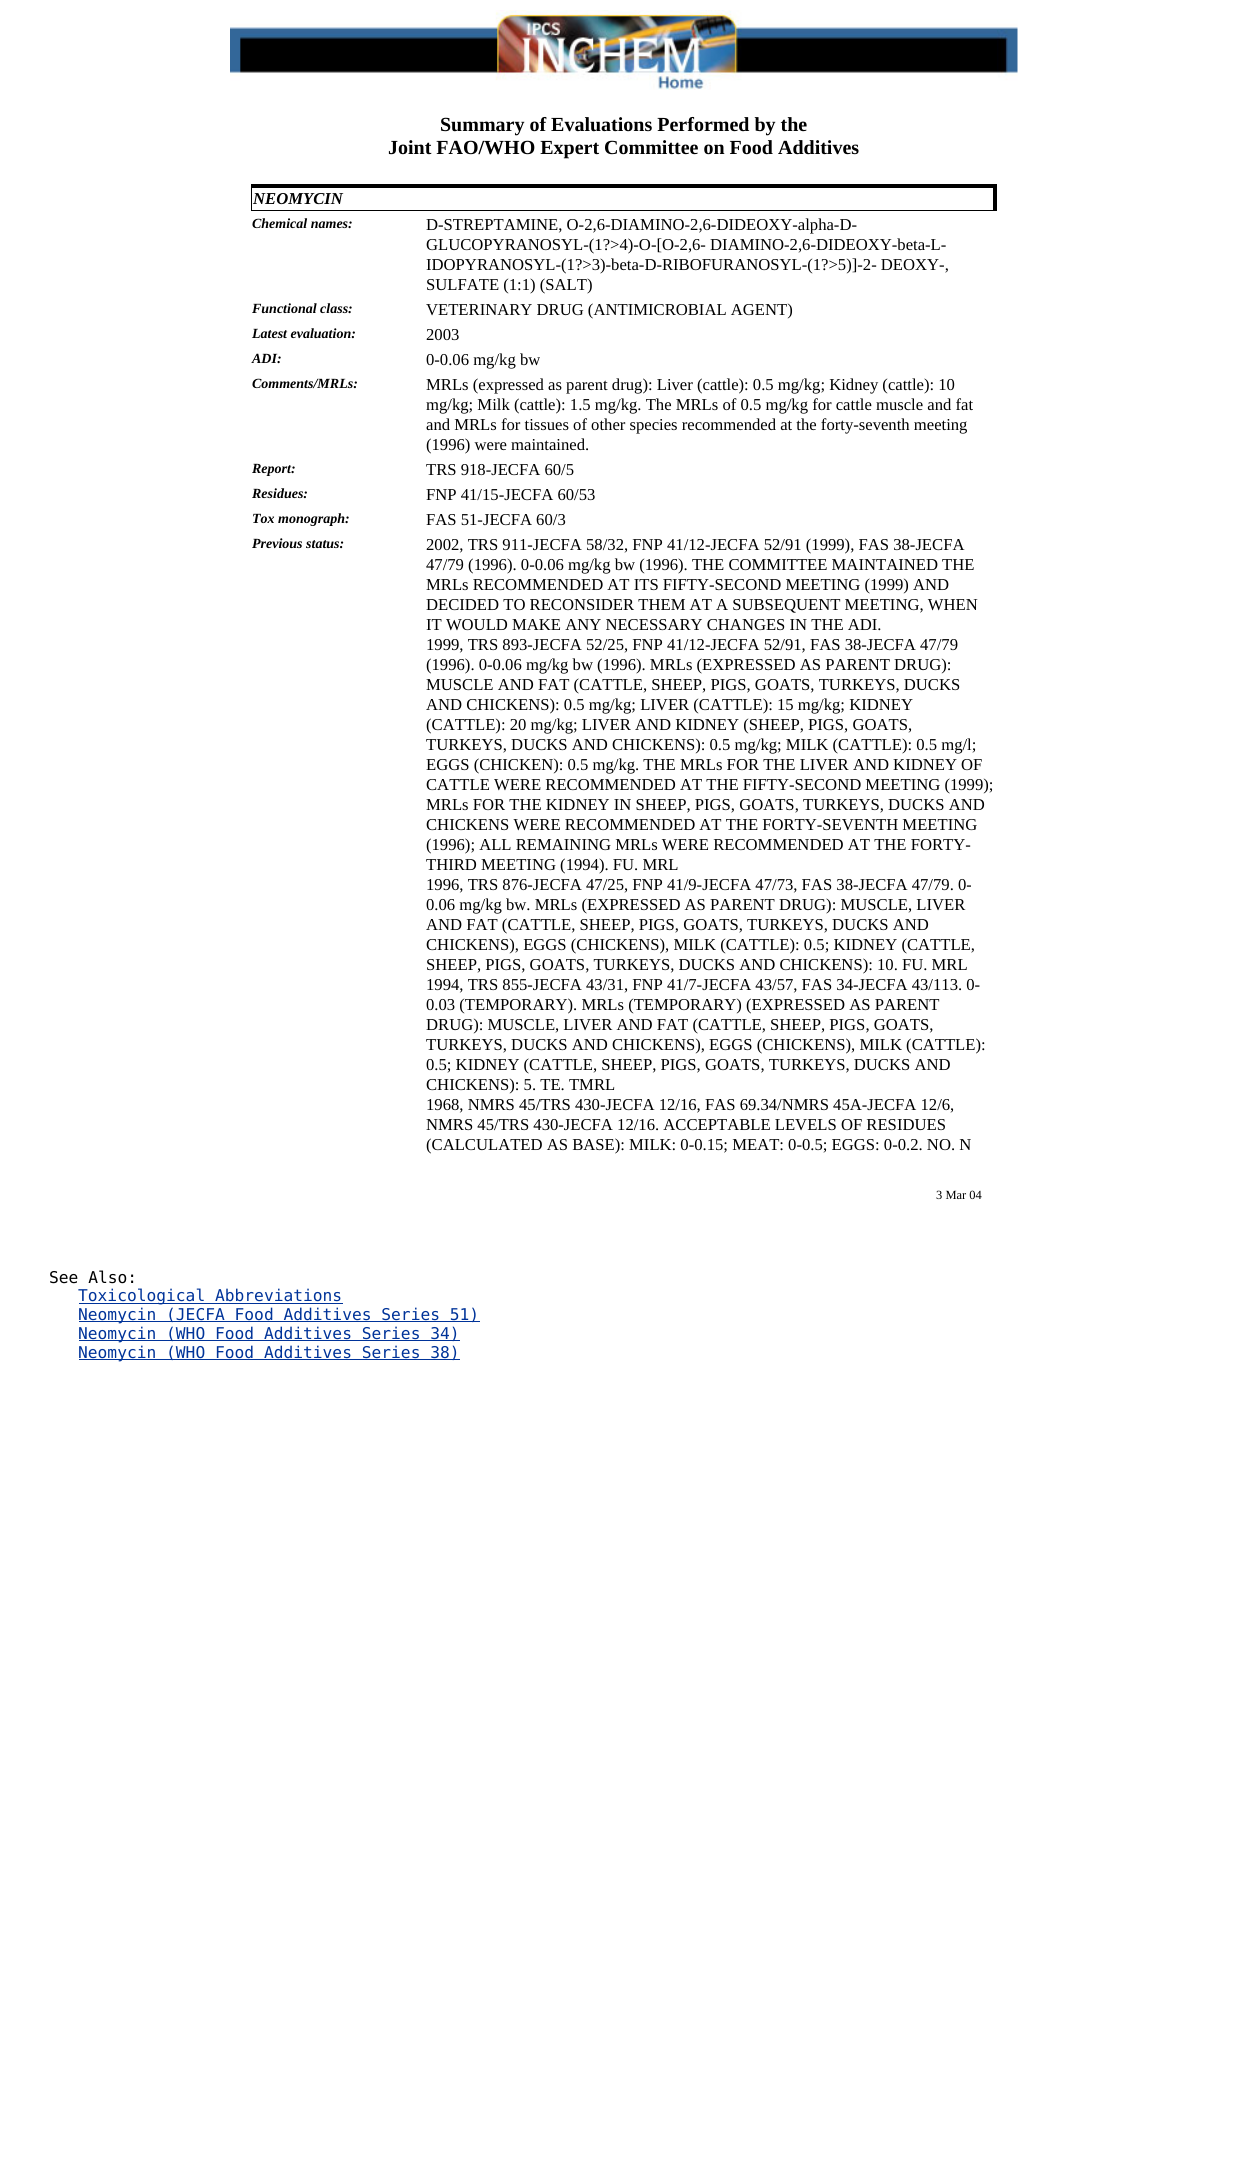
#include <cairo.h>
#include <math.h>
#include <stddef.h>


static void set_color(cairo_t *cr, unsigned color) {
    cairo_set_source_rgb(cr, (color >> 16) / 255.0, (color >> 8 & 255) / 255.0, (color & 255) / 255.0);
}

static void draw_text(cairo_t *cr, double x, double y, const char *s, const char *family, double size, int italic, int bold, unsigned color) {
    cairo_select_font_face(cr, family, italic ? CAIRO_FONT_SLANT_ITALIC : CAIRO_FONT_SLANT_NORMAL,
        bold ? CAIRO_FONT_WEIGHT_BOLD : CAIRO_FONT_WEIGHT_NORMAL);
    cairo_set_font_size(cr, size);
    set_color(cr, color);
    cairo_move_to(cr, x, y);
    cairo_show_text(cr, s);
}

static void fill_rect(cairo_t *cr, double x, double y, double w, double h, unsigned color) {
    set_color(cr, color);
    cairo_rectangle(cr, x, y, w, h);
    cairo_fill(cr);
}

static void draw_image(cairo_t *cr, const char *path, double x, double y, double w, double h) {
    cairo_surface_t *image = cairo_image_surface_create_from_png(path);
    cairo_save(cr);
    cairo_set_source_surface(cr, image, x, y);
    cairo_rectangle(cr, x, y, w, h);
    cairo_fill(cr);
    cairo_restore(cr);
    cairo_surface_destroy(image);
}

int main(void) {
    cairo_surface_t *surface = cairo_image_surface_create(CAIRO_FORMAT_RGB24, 1246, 2183);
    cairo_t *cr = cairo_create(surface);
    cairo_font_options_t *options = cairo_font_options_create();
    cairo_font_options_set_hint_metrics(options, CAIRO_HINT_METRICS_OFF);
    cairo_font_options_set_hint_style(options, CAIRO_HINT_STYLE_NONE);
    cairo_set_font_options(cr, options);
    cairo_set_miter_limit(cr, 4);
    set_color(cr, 0xFFFFFF);
    cairo_paint(cr);
    draw_image(cr, "assets/img1.png", 230, 10, 788, 80);
    draw_text(cr, 440, 131, "Summary of Evaluations Performed by the", "Liberation Serif", 20, 0, 1, 0x000000);
    draw_text(cr, 388, 154, "Joint FAO/WHO Expert Committee on Food Additives", "Liberation Serif", 20, 0, 1, 0x000000);
    fill_rect(cr, 251, 184, 745, 4, 0x000000);
    fill_rect(cr, 993, 184, 4, 27, 0x000000);
    fill_rect(cr, 251, 210, 745, 1, 0x000000);
    fill_rect(cr, 251, 184, 1, 27, 0x000000);
    draw_text(cr, 253, 204, "NEOMYCIN", "Liberation Serif", 16.65, 1, 1, 0x000000);
    draw_text(cr, 252, 228, "Chemical names:", "Liberation Serif", 14, 1, 1, 0x000000);
    draw_text(cr, 426, 230, "D-STREPTAMINE, O-2,6-DIAMINO-2,6-DIDEOXY-alpha-D-", "Liberation Serif", 16.65, 0, 0, 0x000000);
    draw_text(cr, 426, 250, "GLUCOPYRANOSYL-(1?>4)-O-[O-2,6- DIAMINO-2,6-DIDEOXY-beta-L-", "Liberation Serif", 16.65, 0, 0, 0x000000);
    draw_text(cr, 426, 270, "IDOPYRANOSYL-(1?>3)-beta-D-RIBOFURANOSYL-(1?>5)]-2- DEOXY-,", "Liberation Serif", 16.65, 0, 0, 0x000000);
    draw_text(cr, 426, 290, "SULFATE (1:1) (SALT)", "Liberation Serif", 16.65, 0, 0, 0x000000);
    draw_text(cr, 252, 313, "Functional class:", "Liberation Serif", 14, 1, 1, 0x000000);
    draw_text(cr, 426, 315, "VETERINARY DRUG (ANTIMICROBIAL AGENT)", "Liberation Serif", 16.65, 0, 0, 0x000000);
    draw_text(cr, 252, 338, "Latest evaluation:", "Liberation Serif", 14, 1, 1, 0x000000);
    draw_text(cr, 426, 340, "2003", "Liberation Serif", 16.65, 0, 0, 0x000000);
    draw_text(cr, 252, 363, "ADI:", "Liberation Serif", 14, 1, 1, 0x000000);
    draw_text(cr, 426, 365, "0-0.06 mg/kg bw", "Liberation Serif", 16.65, 0, 0, 0x000000);
    draw_text(cr, 252, 388, "Comments/MRLs:", "Liberation Serif", 14, 1, 1, 0x000000);
    draw_text(cr, 426, 390, "MRLs (expressed as parent drug): Liver (cattle): 0.5 mg/kg; Kidney (cattle): 10", "Liberation Serif", 16.65, 0, 0, 0x000000);
    draw_text(cr, 426, 410, "mg/kg; Milk (cattle): 1.5 mg/kg. The MRLs of 0.5 mg/kg for cattle muscle and fat", "Liberation Serif", 16.65, 0, 0, 0x000000);
    draw_text(cr, 426, 430, "and MRLs for tissues of other species recommended at the forty-seventh meeting", "Liberation Serif", 16.65, 0, 0, 0x000000);
    draw_text(cr, 426, 450, "(1996) were maintained.", "Liberation Serif", 16.65, 0, 0, 0x000000);
    draw_text(cr, 252, 473, "Report:", "Liberation Serif", 14, 1, 1, 0x000000);
    draw_text(cr, 426, 475, "TRS 918-JECFA 60/5", "Liberation Serif", 16.65, 0, 0, 0x000000);
    draw_text(cr, 252, 498, "Residues:", "Liberation Serif", 14, 1, 1, 0x000000);
    draw_text(cr, 426, 500, "FNP 41/15-JECFA 60/53", "Liberation Serif", 16.65, 0, 0, 0x000000);
    draw_text(cr, 252, 523, "Tox monograph:", "Liberation Serif", 14, 1, 1, 0x000000);
    draw_text(cr, 426, 525, "FAS 51-JECFA 60/3", "Liberation Serif", 16.65, 0, 0, 0x000000);
    draw_text(cr, 252, 548, "Previous status:", "Liberation Serif", 14, 1, 1, 0x000000);
    draw_text(cr, 426, 550, "2002, TRS 911-JECFA 58/32, FNP 41/12-JECFA 52/91 (1999), FAS 38-JECFA", "Liberation Serif", 16.65, 0, 0, 0x000000);
    draw_text(cr, 426, 570, "47/79 (1996). 0-0.06 mg/kg bw (1996). THE COMMITTEE MAINTAINED THE", "Liberation Serif", 16.65, 0, 0, 0x000000);
    draw_text(cr, 426, 590, "MRLs RECOMMENDED AT ITS FIFTY-SECOND MEETING (1999) AND", "Liberation Serif", 16.65, 0, 0, 0x000000);
    draw_text(cr, 426, 610, "DECIDED TO RECONSIDER THEM AT A SUBSEQUENT MEETING, WHEN", "Liberation Serif", 16.65, 0, 0, 0x000000);
    draw_text(cr, 426, 630, "IT WOULD MAKE ANY NECESSARY CHANGES IN THE ADI.", "Liberation Serif", 16.65, 0, 0, 0x000000);
    draw_text(cr, 426, 650, "1999, TRS 893-JECFA 52/25, FNP 41/12-JECFA 52/91, FAS 38-JECFA 47/79", "Liberation Serif", 16.65, 0, 0, 0x000000);
    draw_text(cr, 426, 670, "(1996). 0-0.06 mg/kg bw (1996). MRLs (EXPRESSED AS PARENT DRUG):", "Liberation Serif", 16.65, 0, 0, 0x000000);
    draw_text(cr, 426, 690, "MUSCLE AND FAT (CATTLE, SHEEP, PIGS, GOATS, TURKEYS, DUCKS", "Liberation Serif", 16.65, 0, 0, 0x000000);
    draw_text(cr, 426, 710, "AND CHICKENS): 0.5 mg/kg; LIVER (CATTLE): 15 mg/kg; KIDNEY", "Liberation Serif", 16.65, 0, 0, 0x000000);
    draw_text(cr, 426, 730, "(CATTLE): 20 mg/kg; LIVER AND KIDNEY (SHEEP, PIGS, GOATS,", "Liberation Serif", 16.65, 0, 0, 0x000000);
    draw_text(cr, 426, 750, "TURKEYS, DUCKS AND CHICKENS): 0.5 mg/kg; MILK (CATTLE): 0.5 mg/l;", "Liberation Serif", 16.65, 0, 0, 0x000000);
    draw_text(cr, 426, 770, "EGGS (CHICKEN): 0.5 mg/kg. THE MRLs FOR THE LIVER AND KIDNEY OF", "Liberation Serif", 16.65, 0, 0, 0x000000);
    draw_text(cr, 426, 790, "CATTLE WERE RECOMMENDED AT THE FIFTY-SECOND MEETING (1999);", "Liberation Serif", 16.65, 0, 0, 0x000000);
    draw_text(cr, 426, 810, "MRLs FOR THE KIDNEY IN SHEEP, PIGS, GOATS, TURKEYS, DUCKS AND", "Liberation Serif", 16.65, 0, 0, 0x000000);
    draw_text(cr, 426, 830, "CHICKENS WERE RECOMMENDED AT THE FORTY-SEVENTH MEETING", "Liberation Serif", 16.65, 0, 0, 0x000000);
    draw_text(cr, 426, 850, "(1996); ALL REMAINING MRLs WERE RECOMMENDED AT THE FORTY-", "Liberation Serif", 16.65, 0, 0, 0x000000);
    draw_text(cr, 426, 870, "THIRD MEETING (1994). FU. MRL", "Liberation Serif", 16.65, 0, 0, 0x000000);
    draw_text(cr, 426, 890, "1996, TRS 876-JECFA 47/25, FNP 41/9-JECFA 47/73, FAS 38-JECFA 47/79. 0-", "Liberation Serif", 16.65, 0, 0, 0x000000);
    draw_text(cr, 426, 910, "0.06 mg/kg bw. MRLs (EXPRESSED AS PARENT DRUG): MUSCLE, LIVER", "Liberation Serif", 16.65, 0, 0, 0x000000);
    draw_text(cr, 426, 930, "AND FAT (CATTLE, SHEEP, PIGS, GOATS, TURKEYS, DUCKS AND", "Liberation Serif", 16.65, 0, 0, 0x000000);
    draw_text(cr, 426, 950, "CHICKENS), EGGS (CHICKENS), MILK (CATTLE): 0.5; KIDNEY (CATTLE,", "Liberation Serif", 16.65, 0, 0, 0x000000);
    draw_text(cr, 426, 970, "SHEEP, PIGS, GOATS, TURKEYS, DUCKS AND CHICKENS): 10. FU. MRL", "Liberation Serif", 16.65, 0, 0, 0x000000);
    draw_text(cr, 426, 990, "1994, TRS 855-JECFA 43/31, FNP 41/7-JECFA 43/57, FAS 34-JECFA 43/113. 0-", "Liberation Serif", 16.65, 0, 0, 0x000000);
    draw_text(cr, 426, 1010, "0.03 (TEMPORARY). MRLs (TEMPORARY) (EXPRESSED AS PARENT", "Liberation Serif", 16.65, 0, 0, 0x000000);
    draw_text(cr, 426, 1030, "DRUG): MUSCLE, LIVER AND FAT (CATTLE, SHEEP, PIGS, GOATS,", "Liberation Serif", 16.65, 0, 0, 0x000000);
    draw_text(cr, 426, 1050, "TURKEYS, DUCKS AND CHICKENS), EGGS (CHICKENS), MILK (CATTLE):", "Liberation Serif", 16.65, 0, 0, 0x000000);
    draw_text(cr, 426, 1070, "0.5; KIDNEY (CATTLE, SHEEP, PIGS, GOATS, TURKEYS, DUCKS AND", "Liberation Serif", 16.65, 0, 0, 0x000000);
    draw_text(cr, 426, 1090, "CHICKENS): 5. TE. TMRL", "Liberation Serif", 16.65, 0, 0, 0x000000);
    draw_text(cr, 426, 1110, "1968, NMRS 45/TRS 430-JECFA 12/16, FAS 69.34/NMRS 45A-JECFA 12/6,", "Liberation Serif", 16.65, 0, 0, 0x000000);
    draw_text(cr, 426, 1130, "NMRS 45/TRS 430-JECFA 12/16. ACCEPTABLE LEVELS OF RESIDUES", "Liberation Serif", 16.65, 0, 0, 0x000000);
    draw_text(cr, 426, 1150, "(CALCULATED AS BASE): MILK: 0-0.15; MEAT: 0-0.5; EGGS: 0-0.2. NO. N", "Liberation Serif", 16.65, 0, 0, 0x000000);
    draw_text(cr, 936, 1199, "3 Mar 04", "Liberation Serif", 12.5, 0, 0, 0x000000);
    draw_text(cr, 49, 1283, "See Also:", "DejaVu Sans Mono", 16.25, 0, 0, 0x000000);
    fill_rect(cr, 79, 1303, 264, 1, 0x003399);
    draw_text(cr, 78, 1301, "Toxicological Abbreviations", "DejaVu Sans Mono", 16.25, 0, 0, 0x003399);
    fill_rect(cr, 79, 1321, 401, 1, 0x003399);
    draw_text(cr, 78, 1320, "Neomycin (JECFA Food Additives Series 51)", "DejaVu Sans Mono", 16.25, 0, 0, 0x003399);
    fill_rect(cr, 79, 1340, 381, 1, 0x003399);
    draw_text(cr, 78, 1339, "Neomycin (WHO Food Additives Series 34)", "DejaVu Sans Mono", 16.25, 0, 0, 0x003399);
    fill_rect(cr, 79, 1359, 381, 1, 0x003399);
    draw_text(cr, 78, 1358, "Neomycin (WHO Food Additives Series 38)", "DejaVu Sans Mono", 16.25, 0, 0, 0x003399);
    cairo_surface_write_to_png(surface, "output.png");
    cairo_font_options_destroy(options);
    cairo_destroy(cr);
    cairo_surface_destroy(surface);
    return 0;
}
